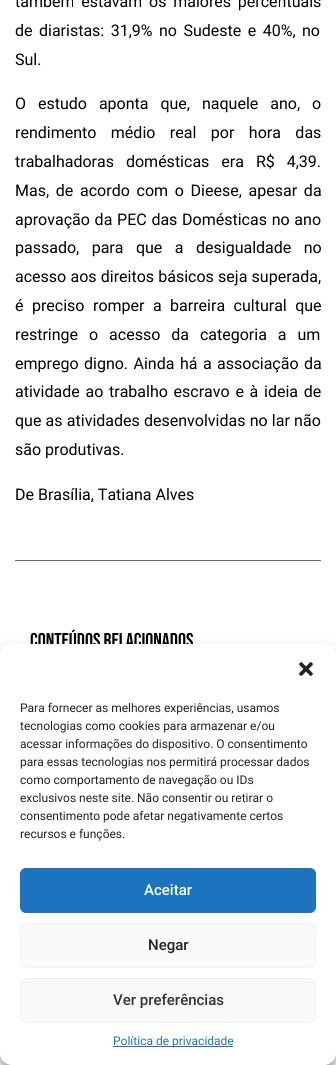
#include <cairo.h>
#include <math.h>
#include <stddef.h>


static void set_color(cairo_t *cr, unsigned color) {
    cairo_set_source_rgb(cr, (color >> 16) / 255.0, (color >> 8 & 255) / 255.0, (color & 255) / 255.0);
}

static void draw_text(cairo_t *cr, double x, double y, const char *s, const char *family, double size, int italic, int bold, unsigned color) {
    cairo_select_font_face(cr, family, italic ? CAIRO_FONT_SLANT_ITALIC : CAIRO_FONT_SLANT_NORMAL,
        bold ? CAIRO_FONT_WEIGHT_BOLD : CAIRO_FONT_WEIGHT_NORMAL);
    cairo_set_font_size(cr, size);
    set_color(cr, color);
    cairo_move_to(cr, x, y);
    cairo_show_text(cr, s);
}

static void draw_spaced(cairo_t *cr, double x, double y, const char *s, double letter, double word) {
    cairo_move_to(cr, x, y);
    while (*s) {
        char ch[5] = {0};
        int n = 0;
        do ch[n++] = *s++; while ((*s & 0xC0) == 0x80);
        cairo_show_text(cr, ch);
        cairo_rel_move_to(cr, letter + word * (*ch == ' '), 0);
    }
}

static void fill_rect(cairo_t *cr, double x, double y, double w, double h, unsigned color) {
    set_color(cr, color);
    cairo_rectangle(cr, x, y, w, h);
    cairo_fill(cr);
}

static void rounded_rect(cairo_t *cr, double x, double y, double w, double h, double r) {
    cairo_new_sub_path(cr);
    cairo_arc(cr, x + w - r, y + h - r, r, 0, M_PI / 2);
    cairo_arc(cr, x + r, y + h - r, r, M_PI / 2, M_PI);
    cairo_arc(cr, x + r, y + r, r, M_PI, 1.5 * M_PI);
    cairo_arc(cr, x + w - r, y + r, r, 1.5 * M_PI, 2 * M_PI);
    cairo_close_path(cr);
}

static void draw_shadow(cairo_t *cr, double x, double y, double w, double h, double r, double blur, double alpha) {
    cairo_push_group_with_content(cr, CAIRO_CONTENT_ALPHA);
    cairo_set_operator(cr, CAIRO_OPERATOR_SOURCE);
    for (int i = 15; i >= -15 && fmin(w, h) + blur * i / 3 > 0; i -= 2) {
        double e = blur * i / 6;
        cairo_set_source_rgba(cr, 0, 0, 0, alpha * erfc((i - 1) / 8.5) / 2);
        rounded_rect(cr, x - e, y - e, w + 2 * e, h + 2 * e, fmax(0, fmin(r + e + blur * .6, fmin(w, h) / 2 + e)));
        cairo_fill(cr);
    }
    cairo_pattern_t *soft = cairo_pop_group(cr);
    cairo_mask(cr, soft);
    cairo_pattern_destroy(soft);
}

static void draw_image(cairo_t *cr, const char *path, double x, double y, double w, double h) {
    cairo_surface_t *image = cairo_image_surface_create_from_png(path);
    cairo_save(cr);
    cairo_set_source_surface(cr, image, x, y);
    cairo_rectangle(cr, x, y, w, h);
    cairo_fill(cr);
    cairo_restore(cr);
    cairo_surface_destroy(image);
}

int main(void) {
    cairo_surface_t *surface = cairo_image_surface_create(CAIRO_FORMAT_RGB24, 336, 1065);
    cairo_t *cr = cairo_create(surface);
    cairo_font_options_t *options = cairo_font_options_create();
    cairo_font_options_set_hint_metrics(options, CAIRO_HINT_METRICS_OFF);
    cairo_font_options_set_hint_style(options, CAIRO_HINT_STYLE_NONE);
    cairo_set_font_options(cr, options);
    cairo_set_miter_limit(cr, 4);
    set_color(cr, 0xFFFFFF);
    cairo_paint(cr);
    cairo_select_font_face(cr, "Roboto", CAIRO_FONT_SLANT_NORMAL, CAIRO_FONT_WEIGHT_NORMAL);
    cairo_set_font_size(cr, 16);
    set_color(cr, 0x000000);
    draw_spaced(cr, 15, 7, "também estavam os maiores percentuais", 0, 2.75);
    draw_spaced(cr, 15, 36, "de diaristas: 31,9% no Sudeste e 40%, no", 0, 2.5);
    draw_text(cr, 15, 65, "Sul.", "Roboto", 16, 0, 0, 0x000000);
    draw_spaced(cr, 15, 109, "O estudo aponta que, naquele ano, o", 0, 8);
    draw_spaced(cr, 15, 138, "rendimento médio real por hora das", 0, 10.5);
    draw_spaced(cr, 15, 167, "trabalhadoras domésticas era R$ 4,39.", 0, 8);
    draw_spaced(cr, 15, 196, "Mas, de acordo com o Dieese, apesar da", 0, 2.75);
    draw_spaced(cr, 15, 225, "aprovação da PEC das Domésticas no ano", 0, 0.75);
    draw_spaced(cr, 15, 253, "passado, para que a desigualdade no", 0, 8.5);
    draw_spaced(cr, 15, 282, "acesso aos direitos básicos seja superada,", 0, 0.25);
    draw_spaced(cr, 15, 311, "é preciso romper a barreira cultural que", 0, 4.5);
    draw_spaced(cr, 15, 340, "restringe o acesso da categoria a um", 0, 7);
    draw_spaced(cr, 15, 369, "emprego digno. Ainda há a associação da", 0, 1.5);
    draw_spaced(cr, 15, 397, "atividade ao trabalho escravo e à ideia de", 0, 1.75);
    draw_spaced(cr, 15, 426, "que as atividades desenvolvidas no lar não", 0, 0.25);
    draw_text(cr, 15, 455, "são produtivas.", "Roboto", 16, 0, 0, 0x000000);
    draw_text(cr, 15, 500, "De Brasília, Tatiana Alves", "Roboto", 16, 0, 0, 0x000000);
    fill_rect(cr, 15, 560, 306, 1, 0x666666);
    draw_text(cr, 30, 647, "Conteúdos Relacionados", "Bebas Neue", 20, 0, 0, 0x000000);
    set_color(cr, 0x000000);
    draw_shadow(cr, 0, 650, 336, 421, 12, 3, 0.23);
    draw_shadow(cr, 0, 654, 336, 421, 12, 10, 0.19);
    set_color(cr, 0x808080);
    draw_shadow(cr, 266, 991, 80, 60, 2, 2.5, 1);
    set_color(cr, 0xFFFFFF);
    rounded_rect(cr, 0, 644, 336, 421, 12);
    cairo_fill(cr);
    draw_image(cr, "assets/img1.png", 299, 662, 14, 14);
    draw_text(cr, 20, 712, "Para fornecer as melhores experiências, usamos", "Roboto", 12, 0, 0, 0x222222);
    draw_text(cr, 20, 730, "tecnologias como cookies para armazenar e/ou", "Roboto", 12, 0, 0, 0x222222);
    draw_text(cr, 20, 748, "acessar informações do dispositivo. O consentimento", "Roboto", 12, 0, 0, 0x222222);
    draw_text(cr, 20, 766, "para essas tecnologias nos permitirá processar dados", "Roboto", 12, 0, 0, 0x222222);
    draw_text(cr, 20, 784, "como comportamento de navegação ou IDs", "Roboto", 12, 0, 0, 0x222222);
    draw_text(cr, 20, 802, "exclusivos neste site. Não consentir ou retirar o", "Roboto", 12, 0, 0, 0x222222);
    draw_text(cr, 20, 820, "consentimento pode afetar negativamente certos", "Roboto", 12, 0, 0, 0x222222);
    draw_text(cr, 20, 838, "recursos e funções.", "Roboto", 12, 0, 0, 0x222222);
    set_color(cr, 0x1E73BE);
    rounded_rect(cr, 20.5, 868.5, 295, 44, 5.5);
    cairo_fill_preserve(cr);
    cairo_set_line_width(cr, 1);
    cairo_stroke(cr);
    draw_text(cr, 144, 895, "Aceitar", "Roboto Medium", 15, 0, 0, 0xFFFFFF);
    set_color(cr, 0xF9F9F9);
    rounded_rect(cr, 20.5, 923.5, 295, 44, 5.5);
    cairo_fill_preserve(cr);
    set_color(cr, 0xF2F2F2);
    cairo_stroke(cr);
    draw_text(cr, 148, 950, "Negar", "Roboto Medium", 15, 0, 0, 0x222222);
    set_color(cr, 0xF9F9F9);
    rounded_rect(cr, 20.5, 978.5, 295, 44, 5.5);
    cairo_fill_preserve(cr);
    set_color(cr, 0xF2F2F2);
    cairo_stroke(cr);
    draw_text(cr, 113, 1005, "Ver preferências", "Roboto Medium", 15, 0, 0, 0x333333);
    fill_rect(cr, 113, 1046, 120, 1, 0x1E73BE);
    draw_text(cr, 113, 1045, "Política de privacidade", "Roboto", 12, 0, 0, 0x1E73BE);
    cairo_surface_write_to_png(surface, "output.png");
    cairo_font_options_destroy(options);
    cairo_destroy(cr);
    cairo_surface_destroy(surface);
    return 0;
}
